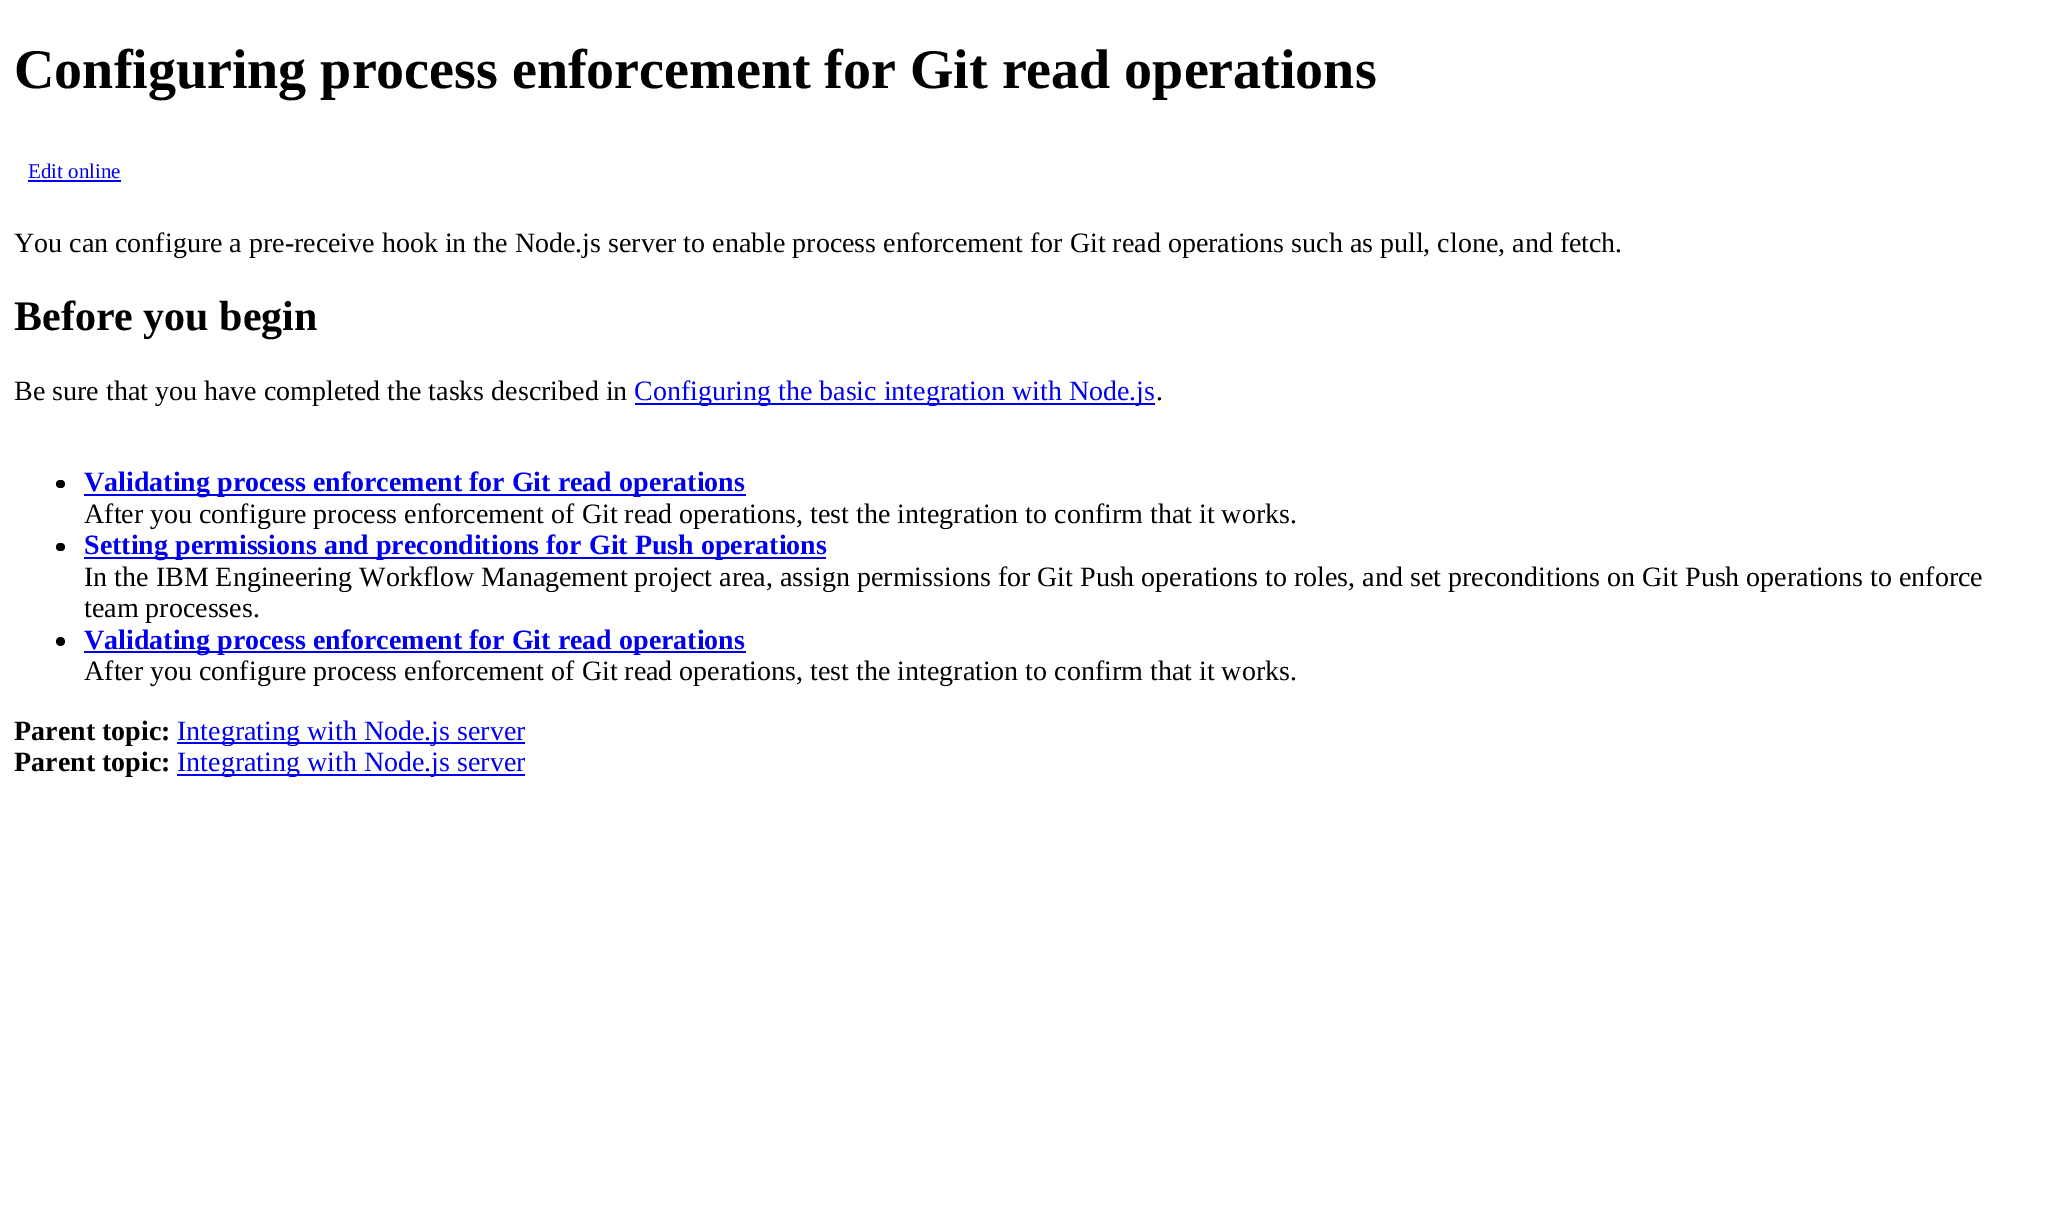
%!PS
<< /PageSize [2058 1208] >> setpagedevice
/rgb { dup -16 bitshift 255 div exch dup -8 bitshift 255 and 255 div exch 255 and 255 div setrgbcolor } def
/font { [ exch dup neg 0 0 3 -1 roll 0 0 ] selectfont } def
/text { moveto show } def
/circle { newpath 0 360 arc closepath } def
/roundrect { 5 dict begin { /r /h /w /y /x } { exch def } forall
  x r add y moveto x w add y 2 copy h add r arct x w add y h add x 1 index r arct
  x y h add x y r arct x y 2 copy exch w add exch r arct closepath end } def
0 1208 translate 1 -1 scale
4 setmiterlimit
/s1 { /LiberationSerif-Bold 56 font 16#000000 rgb } def
/s2 { /LiberationSerif-Regular 21 font 16#0000EE rgb } def
/s3 { /LiberationSerif-Regular 28 font 16#000000 rgb } def
/s4 { /LiberationSerif-Bold 42 font 16#000000 rgb } def
/s5 { /LiberationSerif-Regular 28 font 16#0000EE rgb } def
/s6 { /LiberationSerif-Bold 28 font 16#0000EE rgb } def
/s7 { /LiberationSerif-Bold 28 font 16#000000 rgb } def
16#FFFFFF rgb
0 0 2058 1208 rectfill
s1
(Configuring process enforcement for Git read operations) 14 88 text
s2
(Edit online) 28 178 text
28 180 93 2 rectfill
s3
(You can configure a pre-receive hook in the Node.js server to enable process enforcement for Git read operations such as pull, clone, and fetch.) 14 252 text
s4
(Before you begin) 14 330 text
s3
(Be sure that you have completed the tasks described in) 14 400 text
16#0000EE rgb
635 403 520 2 rectfill
(Configuring the basic integration with Node.js) 634 400 text
s3
(.) 1156 400 text
56 480 9 8 4 roundrect fill
16#0000EE rgb
84 494 662 2 rectfill
s6
(Validating process enforcement for Git read operations) 84 491 text
s3
(After you configure process enforcement of Git read operations, test the integration to confirm that it works.) 84 523 text
56 543 9 8 4 roundrect fill
16#0000EE rgb
84 557 742 2 rectfill
s6
(Setting permissions and preconditions for Git Push operations) 84 554 text
s3
(In the IBM Engineering Workflow Management project area, assign permissions for Git Push operations to roles, and set preconditions on Git Push operations to enforce) 84 586 text
(team processes.) 84 617 text
60.5 641.5 4.5 circle fill
16#0000EE rgb
84 651 662 2 rectfill
s6
(Validating process enforcement for Git read operations) 84 649 text
s3
(After you configure process enforcement of Git read operations, test the integration to confirm that it works.) 84 680 text
s7
(Parent topic:) 14 740 text
16#0000EE rgb
177 742 348 2 rectfill
s5
(Integrating with Node.js server) 177 740 text
s7
(Parent topic:) 14 771 text
16#0000EE rgb
177 774 348 2 rectfill
s5
(Integrating with Node.js server) 177 771 text
showpage
